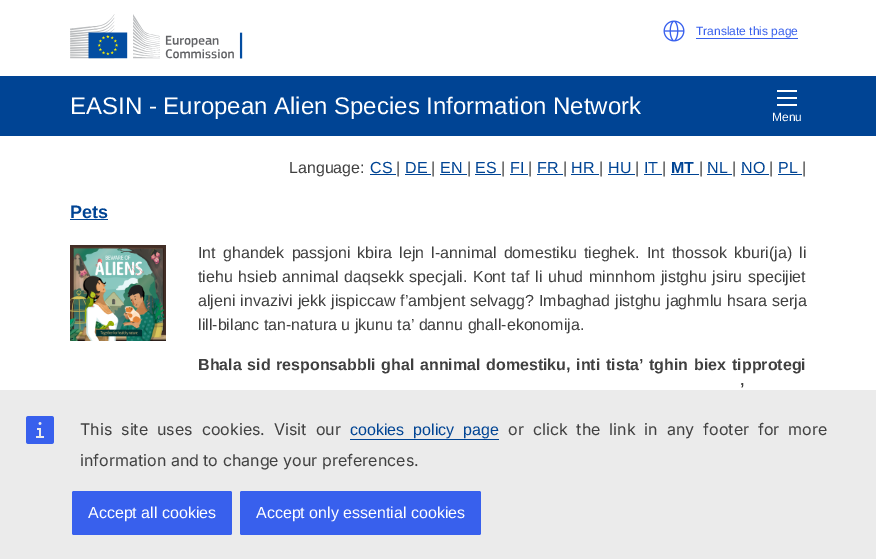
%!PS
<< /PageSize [876 559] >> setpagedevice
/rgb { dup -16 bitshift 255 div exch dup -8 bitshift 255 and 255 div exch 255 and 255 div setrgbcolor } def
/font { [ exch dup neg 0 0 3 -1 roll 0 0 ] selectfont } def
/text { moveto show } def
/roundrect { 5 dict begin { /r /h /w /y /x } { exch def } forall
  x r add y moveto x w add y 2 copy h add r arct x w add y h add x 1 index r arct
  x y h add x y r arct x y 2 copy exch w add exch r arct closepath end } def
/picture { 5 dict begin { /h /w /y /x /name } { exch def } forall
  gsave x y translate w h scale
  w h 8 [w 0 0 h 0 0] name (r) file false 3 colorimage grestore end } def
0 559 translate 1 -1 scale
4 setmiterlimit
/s1 { /LiberationSans-Regular 12 font 16#3860ED rgb } def
/s2 { /LiberationSans-Regular 24 font 16#FFFFFF rgb } def
/s3 { /LiberationSans-Regular 12 font 16#FFFFFF rgb } def
/s4 { /LiberationSans-Regular 16 font 16#404040 rgb } def
/s5 { /LiberationSans-Regular 16 font 16#004494 rgb } def
/s6 { /LiberationSans-Bold 16 font 16#004494 rgb } def
/s7 { /LiberationSans-Bold 18 font 16#004494 rgb } def
/s8 { /LiberationSans-Bold 16 font 16#404040 rgb } def
/s9 { /Inter-Regular 16 font 16#404040 rgb } def
/s10 { /LiberationSans-Regular 16 font 16#FFFFFF rgb } def
16#FFFFFF rgb
0 0 876 559 rectfill
(pic1.raw) 70 14 173 45 picture
(pic2.raw) 663 20 22 22 picture
s1
(Translate this page) 696 35 text
696 38 102 1 rectfill
16#004494 rgb
0 76 876 60 rectfill
s2
(EASIN - European Alien Species Information Network) 70 114 text
(pic3.raw) 777 90 20 16 picture
s3
(Menu) 772 121 text
s4
(Language:) 289 173 text
s5
(CS) 370 173 text
370 174 26 1 rectfill
s4
(|) 396 173 text
s5
(DE) 405 173 text
405 174 26 1 rectfill
s4
(|) 431 173 text
s5
(EN) 440 173 text
440 174 27 1 rectfill
s4
(|) 467 173 text
s5
(ES) 475 173 text
475 174 26 1 rectfill
s4
(|) 501 173 text
s5
(FI) 510 173 text
510 174 18 1 rectfill
s4
(|) 528 173 text
s5
(FR) 537 173 text
537 174 26 1 rectfill
s4
(|) 563 173 text
s5
(HR) 571 173 text
571 174 28 1 rectfill
s4
(|) 599 173 text
s5
(HU) 608 173 text
608 174 27 1 rectfill
s4
(|) 635 173 text
s5
(IT) 644 173 text
644 174 18 1 rectfill
s4
(|) 662 173 text
s6
(MT) 671 173 text
671 174 28 1 rectfill
s4
(|) 699 173 text
s5
(NL) 707 173 text
707 174 25 1 rectfill
s4
(|) 732 173 text
s5
(NO) 741 173 text
741 174 28 1 rectfill
s4
(|) 769 173 text
s5
(PL) 778 173 text
778 174 24 1 rectfill
s4
(|) 802 173 text
s7
(Pets) 70 218 text
70 219 38 1 rectfill
(pic4.raw) 70 245 96 96 picture
/LiberationSans-Regular 16 font
16#404040 rgb
198 258 moveto 2.75 0 32 (Int ghandek passjoni kbira lejn l-annimal domestiku tieghek. Int thossok kburi\(ja\)) widthshow
(li) 799 258 text
198 282 moveto 1.25 0 32 (tiehu hsieb annimal daqsekk specjali. Kont taf li uhud minnhom jistghu jsiru) widthshow
(specijiet) 748 282 text
198 306 moveto 0.5 0 32 (aljeni invazivi jekk jispiccaw f’ambjent selvagg? Imbaghad jistghu) widthshow
666 306 moveto 0.5 0 32 (jaghmlu hsara serja) widthshow
(lill-bilanc tan-natura u jkunu ta’ dannu ghall-ekonomija.) 198 330 text
/LiberationSans-Bold 16 font
198 370 moveto 1.25 0 32 (Bhala sid responsabbli ghal annimal domestiku, inti tista’ tghin biex) widthshow
(tipprotegi) 732 370 text
740 394 moveto 4 0 32 (’) widthshow
16#EBEBEB rgb
0 390 876 169 rectfill
(pic5.raw) 26 416 28 28 picture
/Inter-Regular 16 font
16#404040 rgb
80 435 moveto 4.5 0 32 (This site uses cookies. Visit our) widthshow
/LiberationSans-Regular 16 font
16#004494 rgb
350 435 moveto 4.5 0 32 (cookies policy page) widthshow
350 439 149 1 rectfill
/Inter-Regular 16 font
16#404040 rgb
508 435 moveto 4.5 0 32 (or click the link in any footer for more) widthshow
(information and to change your preferences.) 80 466 text
16#3860ED rgb
72 491 160 44 2 roundrect fill
s10
(Accept all cookies) 88 518 text
16#3860ED rgb
240 491 241 44 2 roundrect fill
s10
(Accept only essential cookies) 256 518 text
showpage
